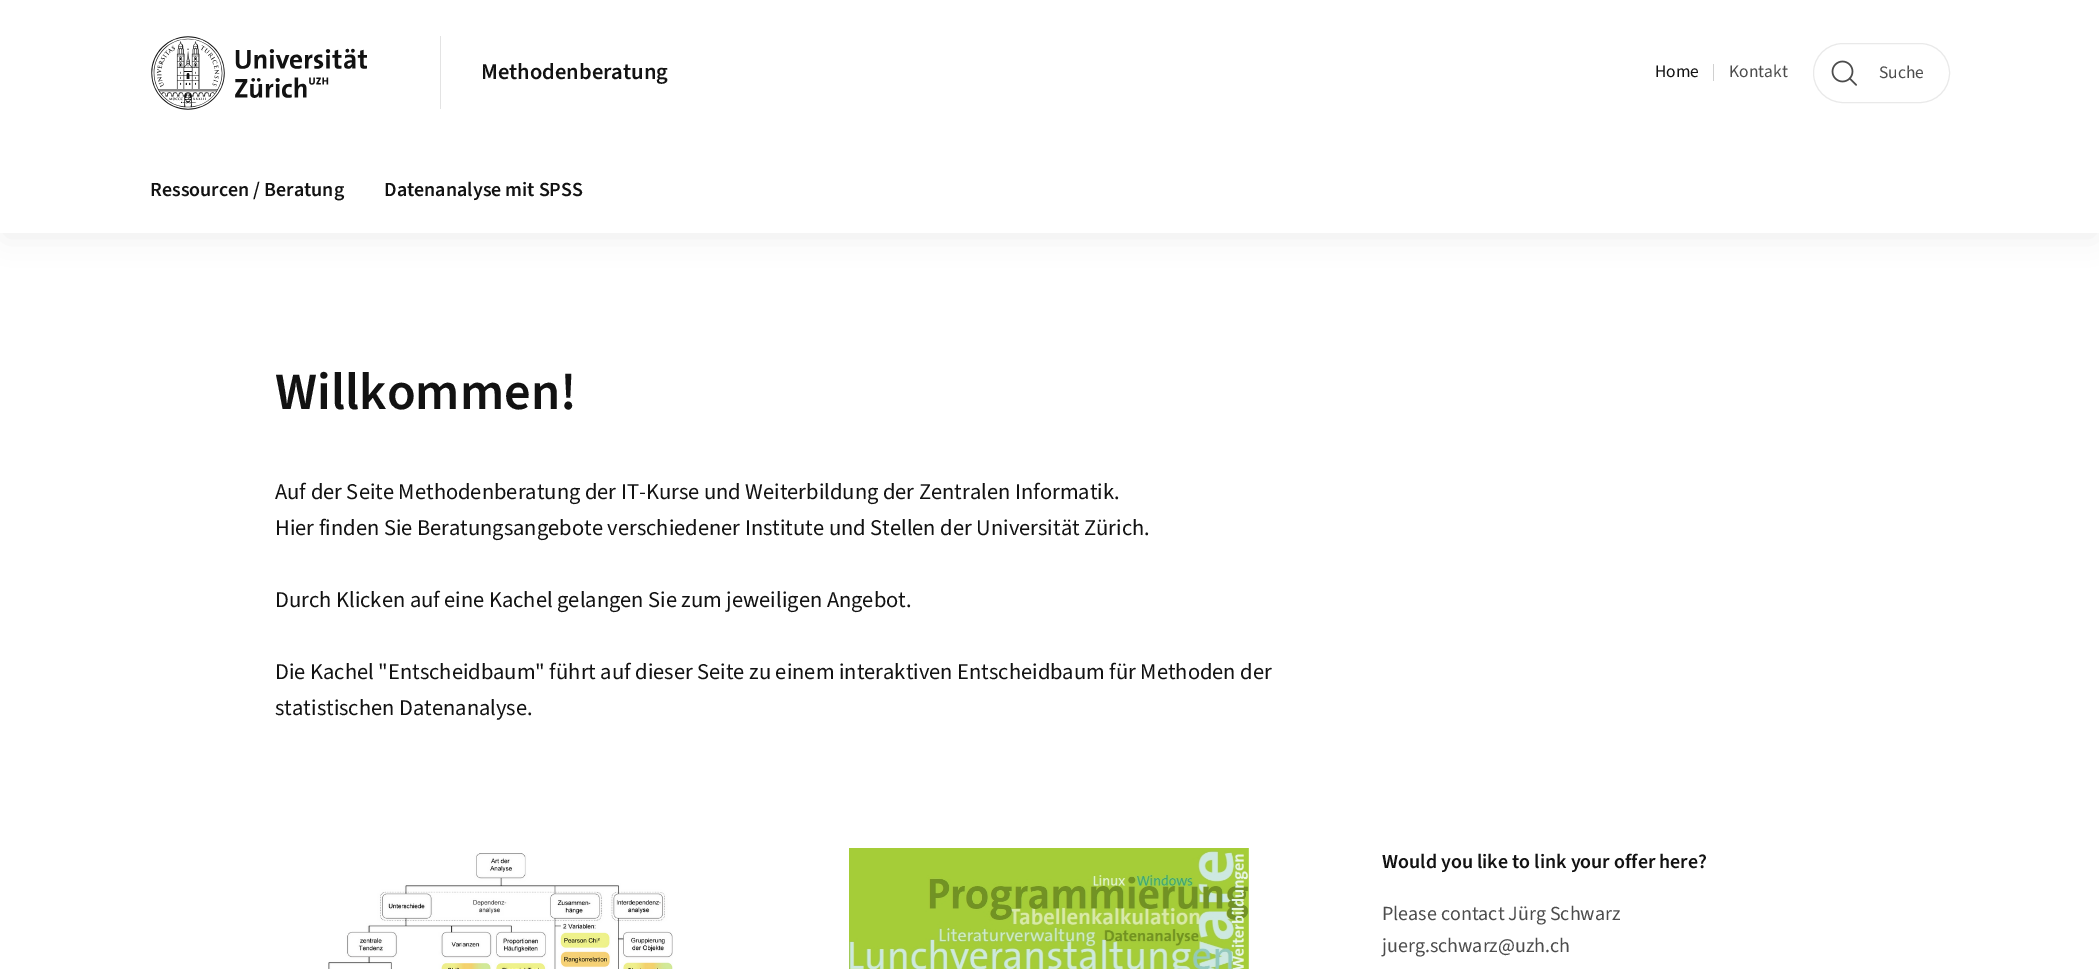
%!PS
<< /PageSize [2099 969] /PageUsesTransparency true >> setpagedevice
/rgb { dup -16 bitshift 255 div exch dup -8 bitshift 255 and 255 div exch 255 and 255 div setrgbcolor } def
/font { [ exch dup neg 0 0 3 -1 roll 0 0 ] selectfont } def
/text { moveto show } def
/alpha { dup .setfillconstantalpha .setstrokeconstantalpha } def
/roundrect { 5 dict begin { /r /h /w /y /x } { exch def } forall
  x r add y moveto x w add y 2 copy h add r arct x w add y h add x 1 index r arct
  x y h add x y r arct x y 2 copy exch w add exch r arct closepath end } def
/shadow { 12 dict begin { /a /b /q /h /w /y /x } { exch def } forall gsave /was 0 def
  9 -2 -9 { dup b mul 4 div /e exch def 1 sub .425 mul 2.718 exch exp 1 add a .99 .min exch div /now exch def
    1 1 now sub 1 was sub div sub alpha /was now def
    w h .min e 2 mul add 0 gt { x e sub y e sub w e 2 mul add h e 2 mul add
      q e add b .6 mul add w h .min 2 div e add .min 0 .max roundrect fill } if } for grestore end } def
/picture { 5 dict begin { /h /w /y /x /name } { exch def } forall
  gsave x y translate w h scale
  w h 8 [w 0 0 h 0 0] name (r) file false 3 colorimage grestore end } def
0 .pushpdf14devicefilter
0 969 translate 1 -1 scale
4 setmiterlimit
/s1 { /SourceSans3-SemiBold 22.5 font 16#121212 rgb } def
/s2 { /SourceSans3-Regular 17.5 font 16#121212 rgb } def
/s3 { /SourceSans3-Regular 17.5 font 16#4C4C4C rgb } def
/s4 { /SourceSans3-SemiBold 20 font 16#121212 rgb } def
/s5 { /SourceSans3-SemiBold 52.5 font 16#121212 rgb } def
/s6 { /SourceSans3-Regular 22.5 font 16#121212 rgb } def
/s7 { /SourceSans3-Regular 20 font 16#4C4C4C rgb } def
16#FFFFFF rgb
0 0 2099 969 rectfill
16#121212 rgb
5 14 2090 222 0 14 0.07 shadow
16#FFFFFF rgb
0 0 2099 233 rectfill
(pic1.raw) 151 36 216 74 picture
16#E3E3E3 rgb
440 36 1 73 rectfill
s1
(Methodenberatung) 481 79 text
s2
(Home) 1655 77 text
16#D0D0D0 rgb
1713 64 1 17 rectfill
s3
(Kontakt) 1729 77 text
16#E9E9E9 rgb
1813.5 43.5 136 59 29.5 roundrect stroke
(pic2.raw) 1831 60 26 26 picture
s3
(Suche) 1879 78 text
s4
(Ressourcen / Beratung) 150 196 text
(Datenanalyse mit SPSS) 384 196 text
s5
(Willkommen!) 275 409 text
s6
(Auf der Seite Methodenberatung der IT-Kurse und Weiterbildung der Zentralen Informatik.) 275 499 text
(Hier finden Sie Beratungsangebote verschiedener Institute und Stellen der Universität Zürich.) 275 535 text
(Durch Klicken auf eine Kachel gelangen Sie zum jeweiligen Angebot.) 275 607 text
(Die Kachel "Entscheidbaum" führt auf dieser Seite zu einem interaktiven Entscheidbaum für Methoden der) 275 679 text
(statistischen Datenanalyse.) 275 715 text
(pic3.raw) 328 853 345 116 picture
(pic4.raw) 849 848 400 121 picture
s4
(Would you like to link your offer here?) 1382 868 text
s7
(Please contact Jürg Schwarz) 1382 920 text
(juerg.schwarz@uzh.ch) 1382 952 text
.poppdf14devicefilter showpage
